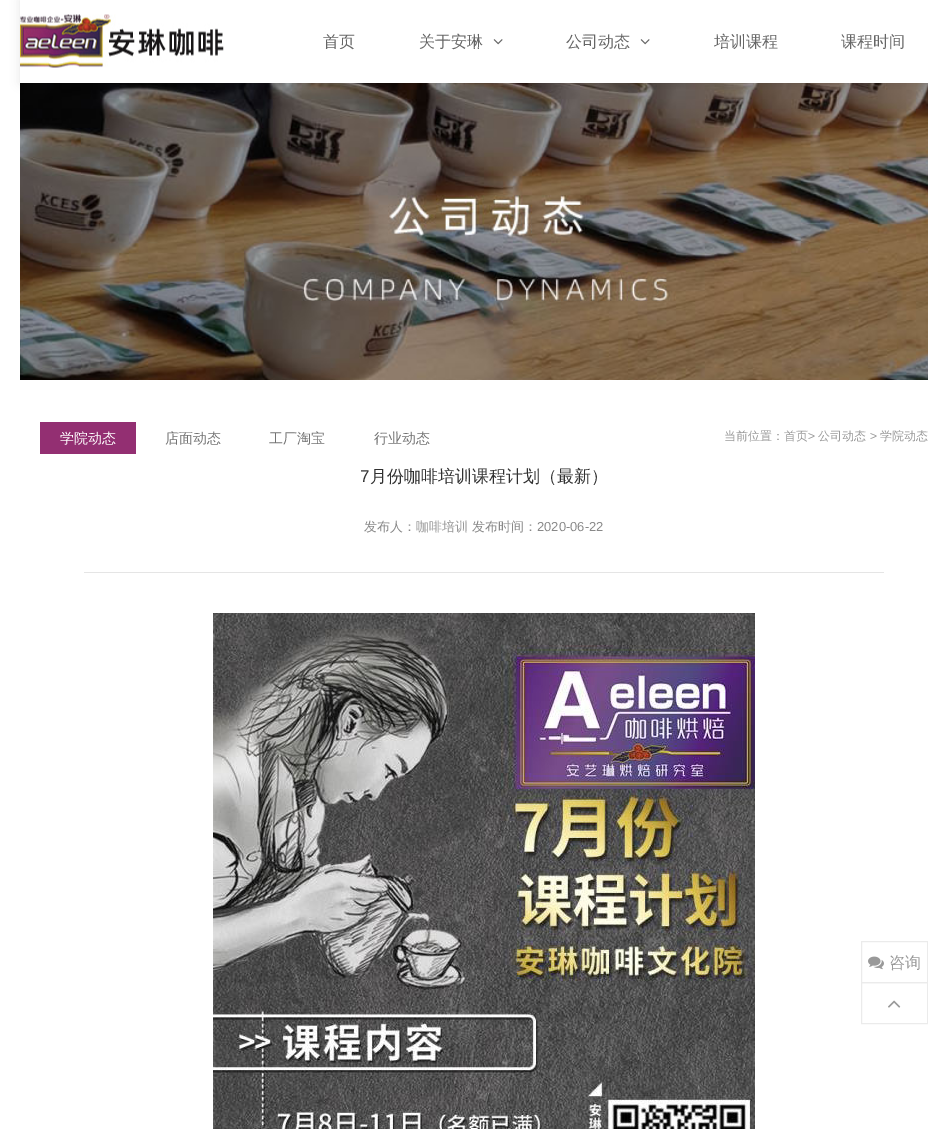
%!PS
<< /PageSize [928 1129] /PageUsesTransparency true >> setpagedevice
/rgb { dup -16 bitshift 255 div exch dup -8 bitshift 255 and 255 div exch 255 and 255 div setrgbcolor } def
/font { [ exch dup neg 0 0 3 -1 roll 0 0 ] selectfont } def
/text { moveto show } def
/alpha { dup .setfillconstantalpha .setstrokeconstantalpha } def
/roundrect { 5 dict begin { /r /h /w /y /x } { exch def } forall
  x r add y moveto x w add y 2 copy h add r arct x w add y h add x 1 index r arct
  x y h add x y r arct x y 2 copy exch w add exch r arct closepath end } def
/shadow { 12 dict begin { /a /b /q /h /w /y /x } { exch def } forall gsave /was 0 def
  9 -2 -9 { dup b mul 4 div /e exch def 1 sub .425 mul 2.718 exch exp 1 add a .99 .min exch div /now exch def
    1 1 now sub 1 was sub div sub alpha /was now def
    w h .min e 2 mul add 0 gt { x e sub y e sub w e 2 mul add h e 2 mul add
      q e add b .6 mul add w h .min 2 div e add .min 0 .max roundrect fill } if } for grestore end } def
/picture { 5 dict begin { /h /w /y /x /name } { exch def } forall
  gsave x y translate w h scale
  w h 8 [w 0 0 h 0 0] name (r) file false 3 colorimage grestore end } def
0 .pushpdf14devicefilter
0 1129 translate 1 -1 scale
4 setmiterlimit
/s1 { /WenQuanYiZenHei-Medium 16 font 16#666666 rgb } def
/s2 { /WenQuanYiZenHei-Medium 14 font 16#FFFFFF rgb } def
/s3 { /WenQuanYiZenHei-Medium 14 font 16#737373 rgb } def
/s4 { /LiberationSans-Regular 17 font 16#303030 rgb } def
/s5 { /WenQuanYiZenHei-Medium 17 font 16#303030 rgb } def
/s6 { /WenQuanYiZenHei-Medium 13 font 16#888888 rgb } def
/s7 { /WenQuanYiZenHei-Medium 13 font 16#999999 rgb } def
/s8 { /LiberationSans-Regular 13 font 16#888888 rgb } def
/s9 { /WenQuanYiZenHei-Medium 12 font 16#999999 rgb } def
/s10 { /LiberationSans-Regular 12 font 16#999999 rgb } def
/s11 { /WenQuanYiZenHei-Medium 16 font 16#999999 rgb } def
16#FFFFFF rgb
0 0 928 1129 rectfill
(pic3.raw) 20 83 908 297 picture
16#000000 rgb
20 0 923 83 0 5 0.1 shadow
16#FFFFFF rgb
20 0 908 83 rectfill
(pic1.raw) 20 14 204 54 picture
s1
(首页) 323 47 text
(关于安琳) 419 47 text
(pic2.raw) 493 39 10 6 picture
(公司动态) 566 47 text
(pic2.raw) 640 39 10 6 picture
(培训课程) 714 47 text
(课程时间) 841 47 text
16#932F72 rgb
40 422 96 32 rectfill
s2
(学院动态) 60 443 text
s3
(店面动态) 165 443 text
(工厂淘宝) 269 443 text
(行业动态) 374 443 text
s4
(7) 360 482 text
s5
(月份咖啡培训课程计划（最新）) 370 482 text
s6
(发布人：) 364 531 text
s7
(咖啡培训) 416 531 text
s6
(发布时间：) 472 531 text
s8
(2020-06-22) 537 531 text
16#E5E5E5 rgb
84 572 800 1 rectfill
(pic4.raw) 213 613 542 516 picture
s9
(当前位置：首页) 724 440 text
s10
(>) 808 440 text
s9
(公司动态) 818 440 text
s10
(>) 870 440 text
s9
(学院动态) 880 440 text
16#EBEBEB rgb
861.5 941.5 66 41 rectstroke
(pic5.raw) 868 956 16 14 picture
s11
(咨询) 889 968 text
16#EBEBEB rgb
861.5 982.5 66 41 rectstroke
(pic6.raw) 888 1000 13 8 picture
.poppdf14devicefilter showpage
